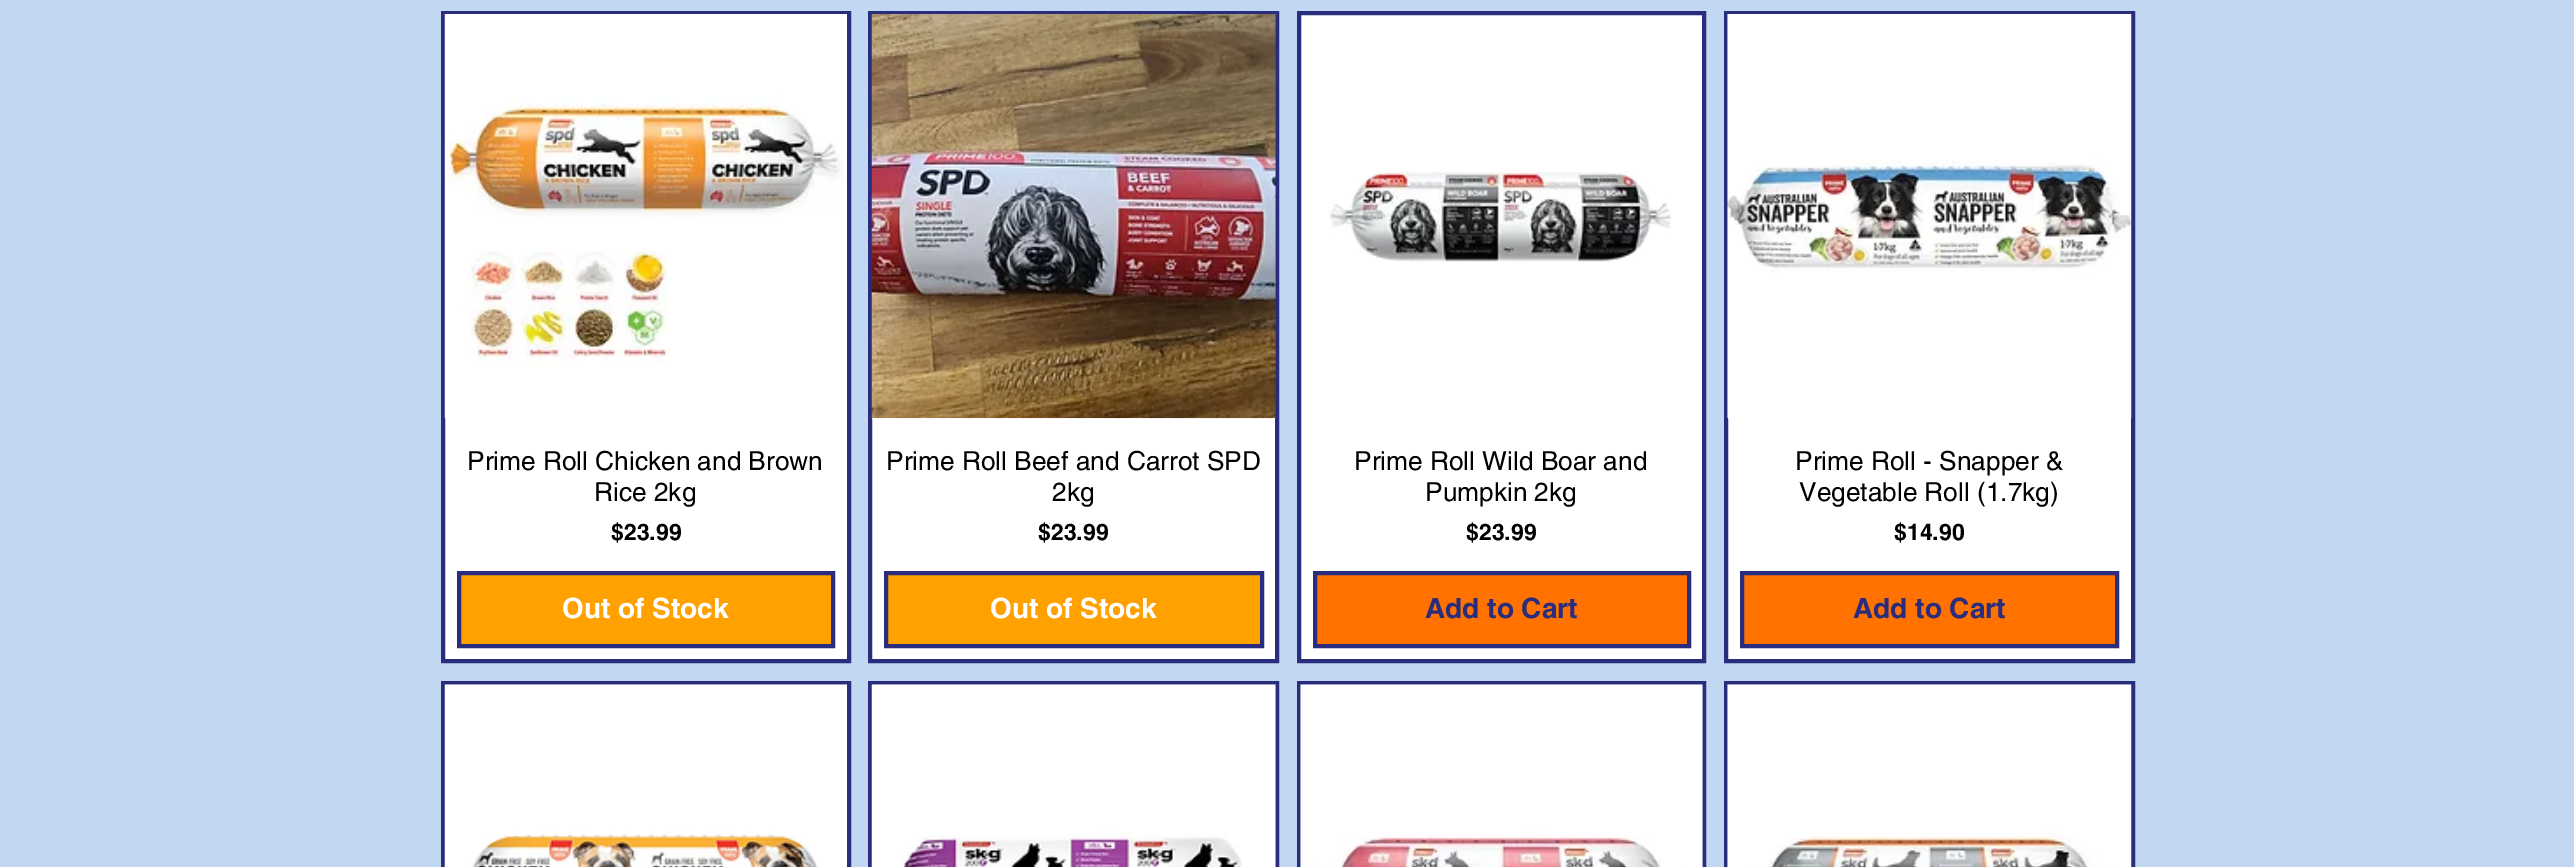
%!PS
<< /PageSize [2574 867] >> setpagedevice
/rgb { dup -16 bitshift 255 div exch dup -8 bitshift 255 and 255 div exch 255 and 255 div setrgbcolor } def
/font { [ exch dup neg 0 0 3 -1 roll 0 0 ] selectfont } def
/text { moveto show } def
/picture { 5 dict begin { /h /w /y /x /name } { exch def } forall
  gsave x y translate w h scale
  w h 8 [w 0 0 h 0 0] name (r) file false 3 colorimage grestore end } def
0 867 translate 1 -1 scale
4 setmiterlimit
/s1 { /helvetica-Regular 26.25 font 16#000000 rgb } def
/s2 { /helvetica-Bold 23 font 16#000000 rgb } def
/s3 { /helvetica-Bold 28 font 16#FFFFFF rgb } def
/s4 { /helvetica-Bold 28 font 16#2A2C7E rgb } def
16#C2D8F2 rgb
0 0 2574 867 rectfill
16#FFFFFF rgb
445 418 402 241 rectfill
16#2A2C7E rgb
4 setlinewidth
443 13 406 648 rectstroke
(pic1.raw) 444 14 403 404 picture
s1
(Prime Roll Chicken and Brown) 467 470 text
(Rice 2kg) 594 501 text
s2
($23.99) 611 540 text
16#FFA100 rgb
459 573 moveto 833 573 lineto 833 646 lineto 459 646 lineto closepath gsave fill grestore
16#2A2C7E rgb
stroke
s3
(Out of Stock) 562 618 text
872 418 403 241 rectfill
16#2A2C7E rgb
870 13 407 648 rectstroke
(pic2.raw) 871 14 405 405 picture
s1
(Prime Roll Beef and Carrot SPD) 886 470 text
(2kg) 1052 501 text
s2
($23.99) 1038 540 text
16#FFA100 rgb
886 573 moveto 1262 573 lineto 1262 646 lineto 886 646 lineto closepath gsave fill grestore
16#2A2C7E rgb
stroke
s3
(Out of Stock) 990 618 text
1299 13 moveto 1704 13 lineto 1704 661 lineto 1299 661 lineto closepath gsave fill grestore
16#2A2C7E rgb
stroke
(pic3.raw) 1329 171 343 91 picture
s1
(Prime Roll Wild Boar and) 1354 470 text
(Pumpkin 2kg) 1425 501 text
s2
($23.99) 1466 540 text
16#FF7200 rgb
1315 573 moveto 1689 573 lineto 1689 646 lineto 1315 646 lineto closepath gsave fill grestore
16#2A2C7E rgb
stroke
s4
(Add to Cart) 1425 618 text
16#FFFFFF rgb
1728 418 403 241 rectfill
16#2A2C7E rgb
1726 13 407 648 rectstroke
(pic4.raw) 1727 14 405 405 picture
s1
(Prime Roll - Snapper &) 1795 470 text
(Vegetable Roll \(1.7kg\)) 1799 501 text
s2
($14.90) 1894 540 text
16#FF7200 rgb
1742 573 moveto 2117 573 lineto 2117 646 lineto 1742 646 lineto closepath gsave fill grestore
16#2A2C7E rgb
stroke
s4
(Add to Cart) 1853 618 text
443 683 406 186 rectstroke
(pic5.raw) 444 684 403 183 picture
870 683 407 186 rectstroke
(pic6.raw) 871 684 405 183 picture
1299 683 405 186 rectstroke
(pic7.raw) 1300 684 403 183 picture
1726 683 407 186 rectstroke
(pic8.raw) 1727 684 405 183 picture
showpage
